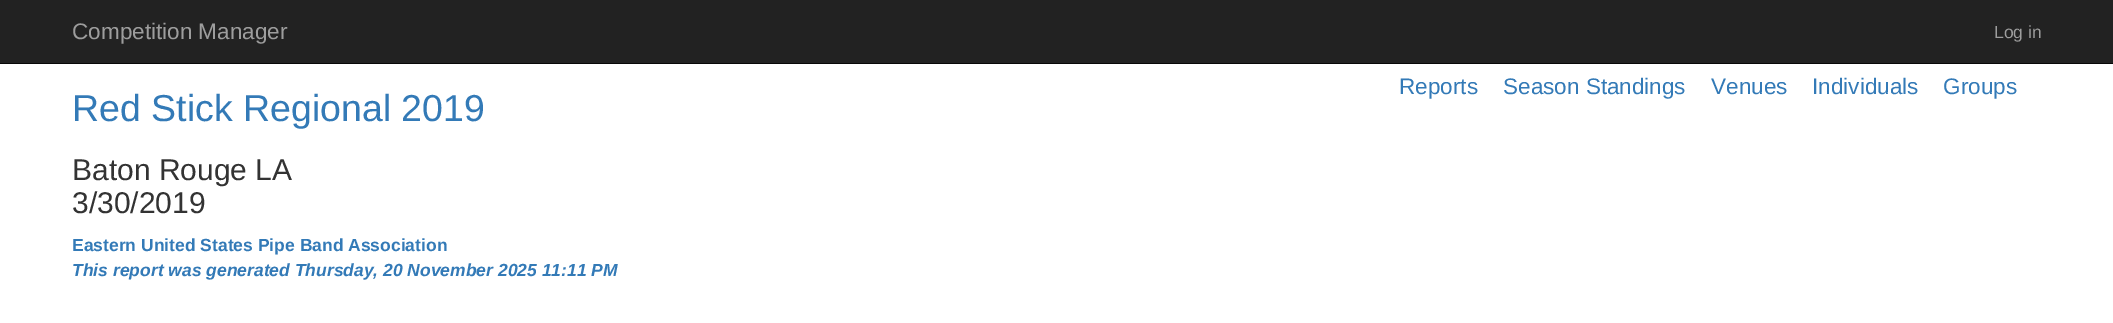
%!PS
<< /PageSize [2113 323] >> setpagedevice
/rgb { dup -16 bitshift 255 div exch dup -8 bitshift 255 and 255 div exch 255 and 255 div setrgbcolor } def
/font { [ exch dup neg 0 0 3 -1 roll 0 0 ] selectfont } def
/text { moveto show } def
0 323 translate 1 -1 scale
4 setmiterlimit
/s1 { /LiberationSans-Regular 22.5 font 16#9D9D9D rgb } def
/s2 { /LiberationSans-Regular 17.5 font 16#9D9D9D rgb } def
/s3 { /LiberationSans-Regular 22.5 font 16#337AB7 rgb } def
/s4 { /LiberationSans-Regular 37.5 font 16#337AB7 rgb } def
/s5 { /LiberationSans-Regular 30 font 16#333333 rgb } def
/s6 { /LiberationSans-Bold 17.5 font 16#337AB7 rgb } def
/s7 { /LiberationSans-BoldItalic 17.5 font 16#337AB7 rgb } def
16#FFFFFF rgb
0 0 2113 323 rectfill
16#222222 rgb
0 0 2113 63 rectfill
16#080808 rgb
0 63 2113 1 rectfill
s1
(Competition Manager) 72 39 text
s2
(Log in) 1994 38 text
s3
(Reports) 1399 94 text
(Season Standings) 1503 94 text
(Venues) 1711 94 text
(Individuals) 1812 94 text
(Groups) 1943 94 text
s4
(Red Stick Regional 2019) 72 121 text
s5
(Baton Rouge LA) 72 180 text
(3/30/2019) 72 213 text
s6
(Eastern United States Pipe Band Association) 72 251 text
s7
(This report was generated Thursday, 20 November 2025 11:11 PM) 72 276 text
showpage
